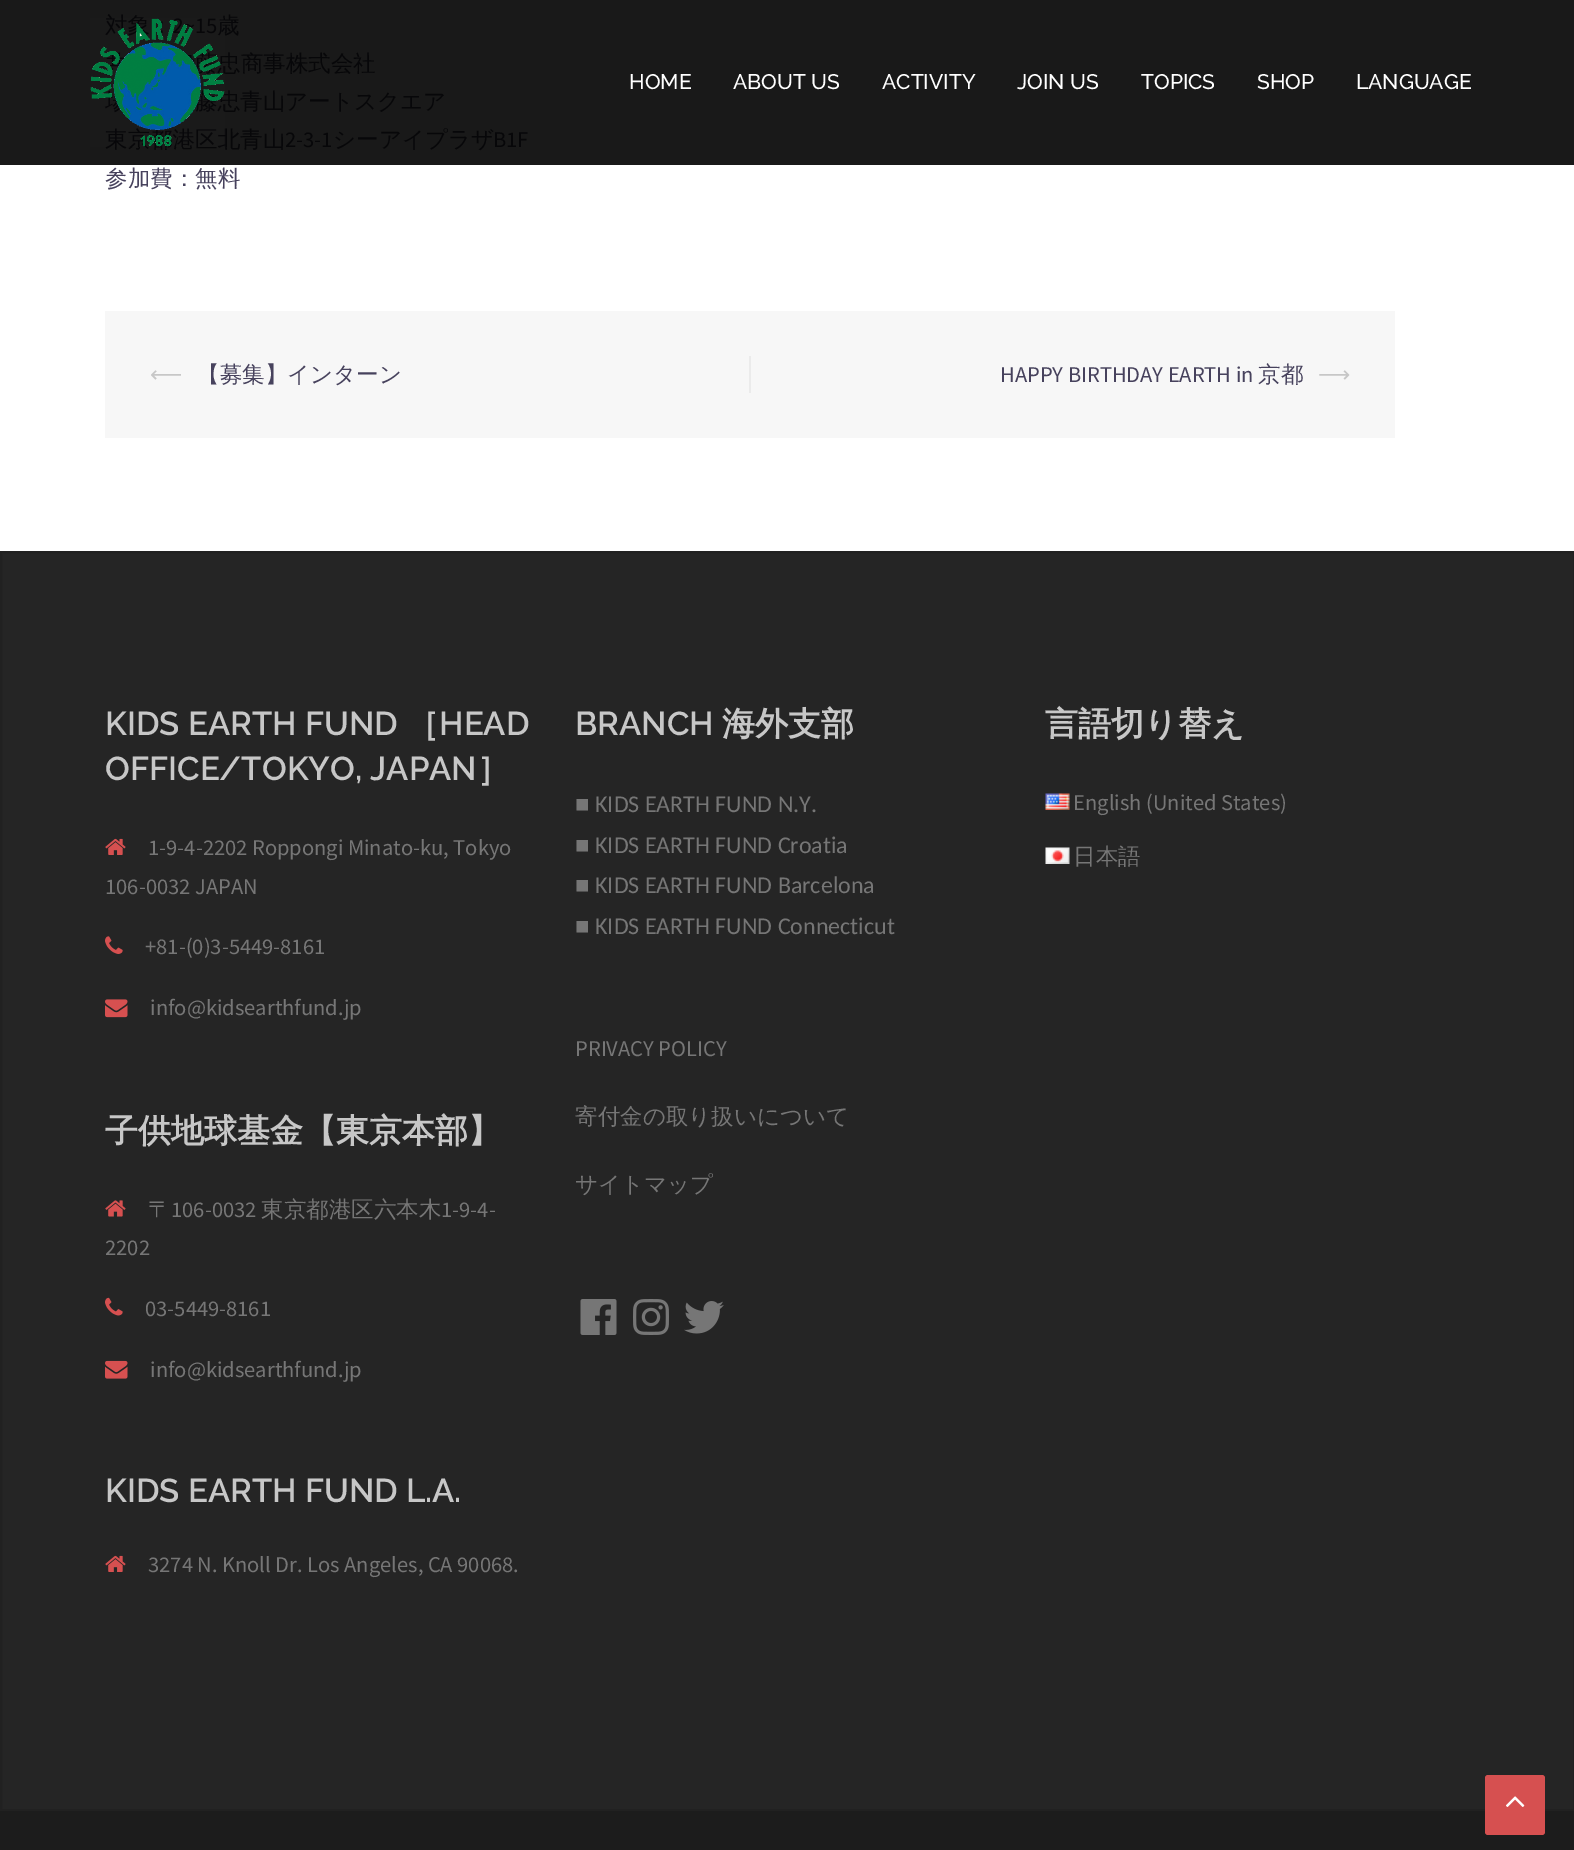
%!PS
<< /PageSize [1574 1850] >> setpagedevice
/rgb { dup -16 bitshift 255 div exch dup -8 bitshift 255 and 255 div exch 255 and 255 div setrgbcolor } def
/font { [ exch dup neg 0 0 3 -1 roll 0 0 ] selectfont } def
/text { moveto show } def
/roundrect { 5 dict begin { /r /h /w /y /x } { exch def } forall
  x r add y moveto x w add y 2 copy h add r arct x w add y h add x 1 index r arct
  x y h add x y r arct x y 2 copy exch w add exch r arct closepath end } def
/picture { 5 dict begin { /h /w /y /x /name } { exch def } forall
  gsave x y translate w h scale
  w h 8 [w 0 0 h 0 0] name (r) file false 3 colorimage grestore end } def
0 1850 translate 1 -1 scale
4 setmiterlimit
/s1 { /WenQuanYiZenHei-Medium 22.5 font 16#070709 rgb } def
/s2 { /SourceSansPro-Regular 22.5 font 16#070709 rgb } def
/s3 { /WenQuanYiZenHei-Medium 22.5 font 16#47425D rgb } def
/s4 { /DejaVuSans-Regular 22.5 font 16#C7C7C7 rgb } def
/s5 { /SourceSansPro-Regular 22.5 font 16#47425D rgb } def
/s6 { /Raleway-Medium 21 font 16#FFFFFF rgb } def
/s7 { /Raleway-SemiBold 33 font 16#C7C7C7 rgb } def
/s8 { /WenQuanYiZenHei-Bold 33 font 16#C7C7C7 rgb } def
/s9 { /SourceSansPro-Regular 22.5 font 16#767676 rgb } def
/s10 { /WenQuanYiZenHei-Medium 22.5 font 16#767676 rgb } def
/s11 { /LiberationSerif-Regular 24 font 16#767676 rgb } def
/s12 { /Carlito-Regular 24 font 16#767676 rgb } def
16#FFFFFF rgb
0 0 1574 1850 rectfill
16#191919 rgb
0 0 1574 165 rectfill
s1
(対象：) 105 33 text
s2
(2~15) 173 33 text
s1
(歳) 217 33 text
(忠商事株式会社) 218 71 text
(藤忠青山アートスクエア) 195 109 text
(東京都港区北青山) 105 147 text
s2
(2-3-1) 285 147 text
s1
(シーアイプラザ) 333 147 text
s2
(B1F) 493 147 text
s3
(参加費：無料) 105 186 text
16#F7F7F7 rgb
105 311 1290 127 rectfill
16#EBEBEB rgb
749 356 2 37 rectfill
s4
(⟵) 150 382 text
s3
(【募集】インターン) 197 382 text
s5
(HAPPY BIRTHDAY EARTH in) 1000 382 text
s3
(京都) 1258 382 text
s4
(⟶) 1318 382 text
(pic1.raw) 90 18 135 129 picture
s6
(HOME) 629 89 text
(ABOUT US) 733 89 text
(ACTIVITY) 882 89 text
(JOIN US) 1017 89 text
(TOPICS) 1141 89 text
(SHOP) 1257 89 text
(LANGUAGE) 1356 89 text
16#252525 rgb
1 552 moveto 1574 552 lineto 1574 1810 lineto 1 1810 lineto closepath gsave fill grestore
16#212121 rgb
2 setlinewidth
stroke
s7
(KIDS EARTH FUND) 105 735 text
s8
(［) 406 735 text
s7
(HEAD) 439 735 text
(OFFICE/TOKYO, JAPAN) 105 780 text
s8
(］) 477 780 text
(pic2.raw) 105 838 21 17 picture
s9
(1-9-4-2202 Roppongi Minato-ku, Tokyo) 148 855 text
(106-0032 JAPAN) 105 894 text
(pic3.raw) 105 936 18 18 picture
(+81-\(0\)3-5449-8161) 145 954 text
(pic4.raw) 105 999 23 19 picture
(info@kidsearthfund.jp) 150 1015 text
s8
(子供地球基金【東京本部】) 105 1142 text
(pic5.raw) 105 1200 21 17 picture
s10
(〒) 148 1217 text
s9
(106-0032) 171 1217 text
s10
(東京都港区六本木) 261 1217 text
s9
(1-9-4-) 441 1217 text
(2202) 105 1255 text
(pic6.raw) 105 1297 18 19 picture
(03-5449-8161) 145 1316 text
(pic7.raw) 105 1360 23 19 picture
(info@kidsearthfund.jp) 150 1377 text
s7
(KIDS EARTH FUND L.A.) 105 1502 text
(pic2.raw) 105 1555 21 17 picture
s9
(3274 N. Knoll Dr. Los Angeles, CA 90068.) 148 1572 text
s7
(BRANCH) 575 735 text
s8
(海外支部) 722 735 text
s11
(■) 575 812 text
s12
(KIDS EARTH FUND N.Y.) 595 812 text
s11
(■) 575 853 text
s12
(KIDS EARTH FUND Croatia) 595 853 text
s11
(■) 575 893 text
s12
(KIDS EARTH FUND Barcelona) 595 893 text
s11
(■) 575 934 text
s12
(KIDS EARTH FUND Connecticut) 595 934 text
s9
(PRIVACY POLICY) 575 1056 text
s10
(寄付金の取り扱いについて) 575 1124 text
(サイトマップ) 575 1192 text
(pic8.raw) 580 1299 37 36 picture
(pic9.raw) 633 1299 36 36 picture
(pic10.raw) 684 1301 40 33 picture
s8
(言語切り替え) 1045 735 text
(pic11.raw) 1045 793 25 17 picture
s9
(English \(United States\)) 1073 810 text
(pic12.raw) 1045 847 25 17 picture
s10
(日本語) 1073 864 text
16#1C1C1C rgb
0 1811 1574 39 rectfill
16#D65050 rgb
1485 1775 60 60 3 roundrect fill
(pic13.raw) 1506 1796 19 11 picture
showpage
